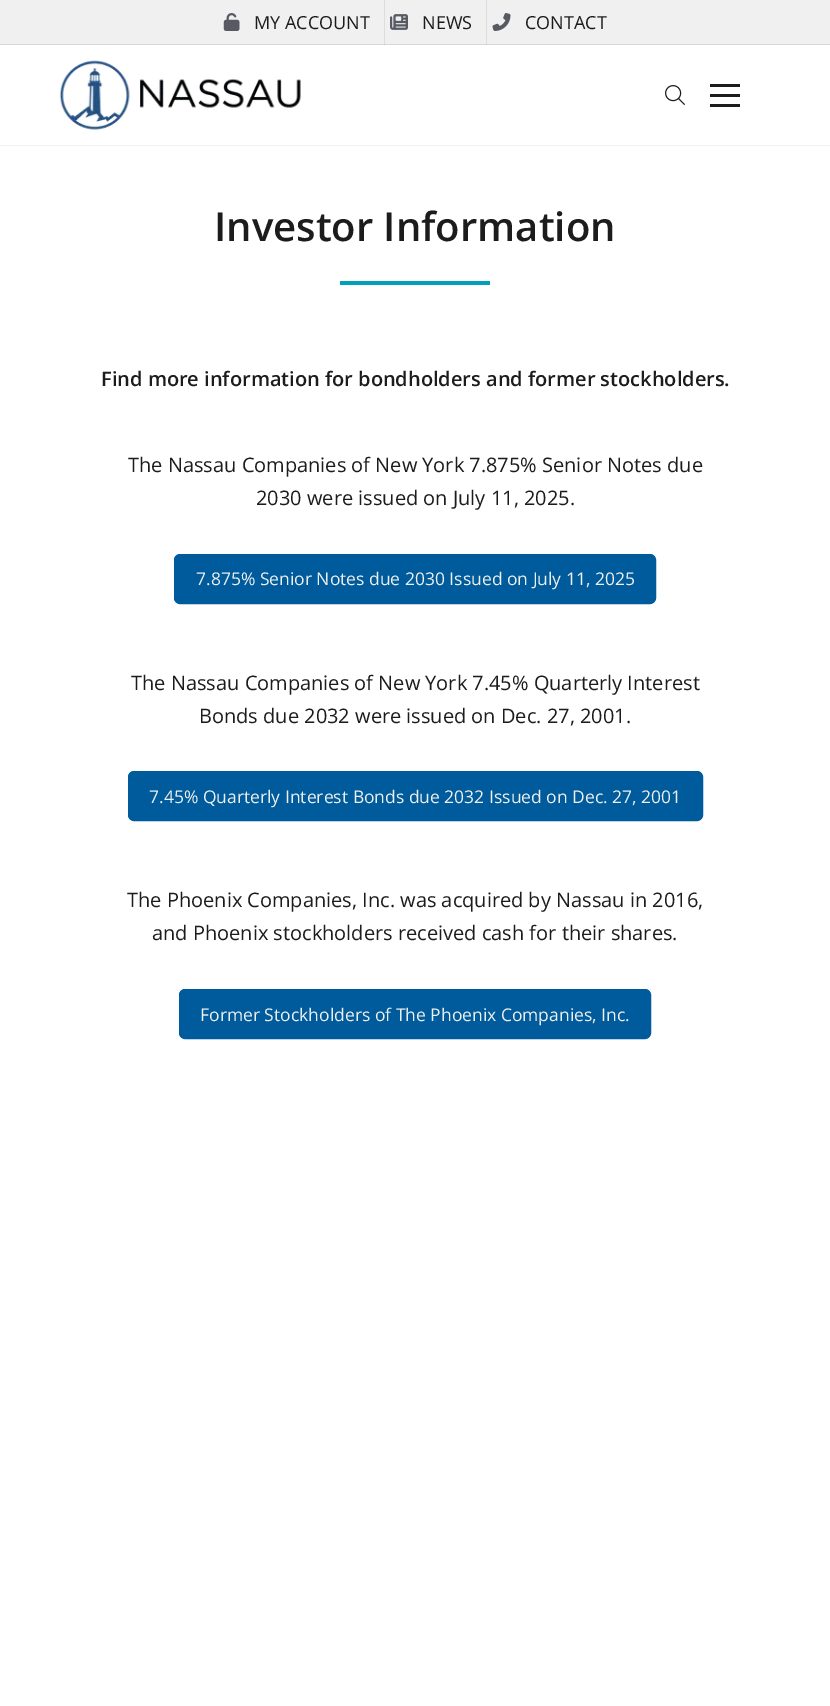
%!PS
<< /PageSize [830 1706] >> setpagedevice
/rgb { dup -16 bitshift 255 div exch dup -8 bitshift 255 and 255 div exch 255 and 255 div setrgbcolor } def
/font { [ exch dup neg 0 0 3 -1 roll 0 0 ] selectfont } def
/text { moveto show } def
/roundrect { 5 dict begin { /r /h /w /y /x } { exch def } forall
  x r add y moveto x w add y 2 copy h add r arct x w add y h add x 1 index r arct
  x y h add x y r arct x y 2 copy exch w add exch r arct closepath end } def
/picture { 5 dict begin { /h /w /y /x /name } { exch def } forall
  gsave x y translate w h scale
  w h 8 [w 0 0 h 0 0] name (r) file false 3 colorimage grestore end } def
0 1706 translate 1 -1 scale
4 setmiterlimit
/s1 { /OpenSans-Regular 18 font 16#1C1C1C rgb } def
/s2 { /OpenSans-SemiBold 40 font 16#1C1C1C rgb } def
/s3 { /OpenSans-SemiBold 20 font 16#1C1C1C rgb } def
/s4 { /OpenSans-Regular 20 font 16#1C1C1C rgb } def
/s5 { /OpenSans-Regular 17.5 font 16#EEEFEF rgb } def
16#FFFFFF rgb
0 0 830 1706 rectfill
16#F0F0F0 rgb
0 0 830 44 rectfill
16#DDDDDD rgb
486 0 1 45 rectfill
384 0 1 45 rectfill
16#D8D8D8 rgb
0 44 830 1 rectfill
16#C7C7C7 rgb
486 44 1 1 rectfill
384 44 1 1 rectfill
(pic1.raw) 223 13 17 18 picture
s1
(MY ACCOUNT) 254 29 text
(pic2.raw) 390 14 18 16 picture
(NEWS) 422 29 text
(pic3.raw) 492 13 19 18 picture
(CONTACT) 525 29 text
16#F0F0F0 rgb
0 145 830 1 rectfill
(pic4.raw) 59 60 242 70 picture
(pic5.raw) 665 85 20 20 picture
16#1C1C1C rgb
710 84 30 3 rectfill
710 94 30 3 rectfill
710 104 30 3 rectfill
s2
(Investor Information) 214 241 text
16#00A0BD rgb
340 281 150 4 rectfill
s3
(Find more information for bondholders and former stockholders.) 101 386 text
s4
(The Nassau Companies of New York 7.875% Senior Notes due) 128 472 text
(2030 were issued on July 11, 2025.) 256 505 text
16#005B9C rgb
174.5 554.5 481 49 5.5 roundrect gsave fill grestore
stroke
s5
(7.875% Senior Notes due 2030 Issued on July 11, 2025) 196 585 text
s4
(The Nassau Companies of New York 7.45% Quarterly Interest) 131 690 text
(Bonds due 2032 were issued on Dec. 27, 2001.) 199 723 text
16#005B9C rgb
128.5 771.5 574 49 5.5 roundrect gsave fill grestore
stroke
s5
(7.45% Quarterly Interest Bonds due 2032 Issued on Dec. 27, 2001) 149 803 text
s4
(The Phoenix Companies, Inc. was acquired by Nassau in 2016,) 127 907 text
(and Phoenix stockholders received cash for their shares.) 152 940 text
16#005B9C rgb
179.5 989.5 471 49 5.5 roundrect gsave fill grestore
stroke
s5
(Former Stockholders of The Phoenix Companies, Inc.) 200 1021 text
showpage
